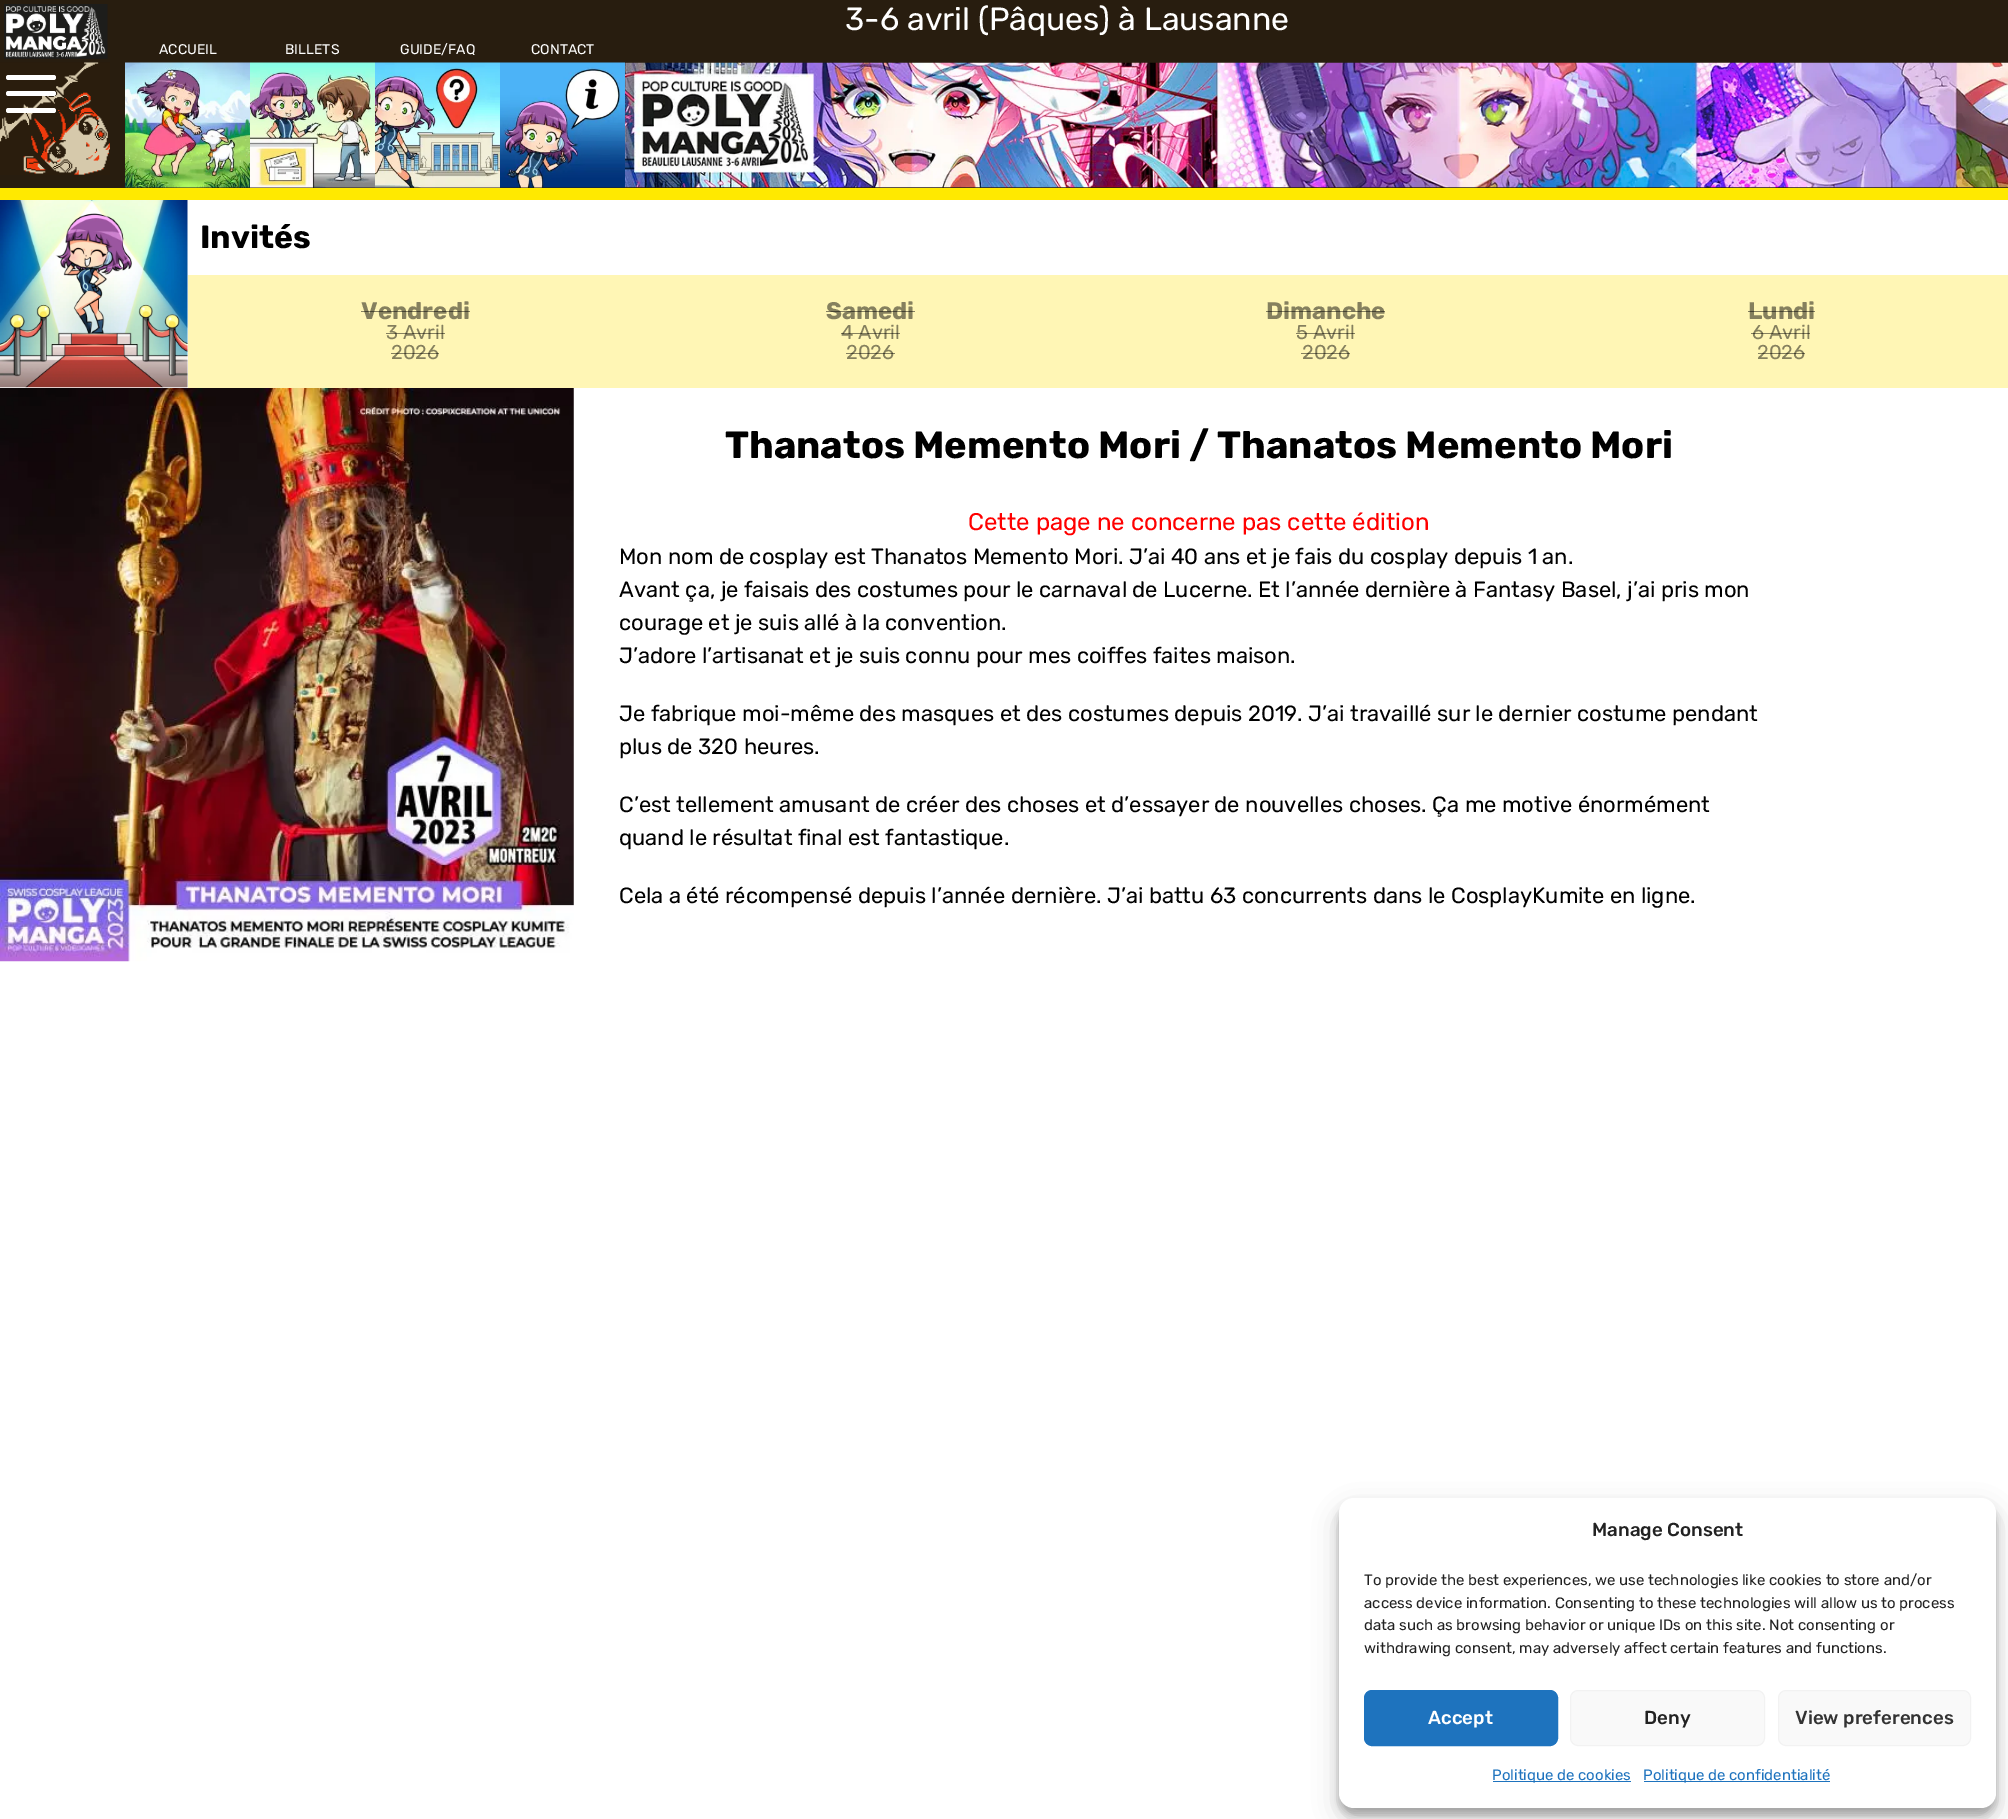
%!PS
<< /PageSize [2008 1819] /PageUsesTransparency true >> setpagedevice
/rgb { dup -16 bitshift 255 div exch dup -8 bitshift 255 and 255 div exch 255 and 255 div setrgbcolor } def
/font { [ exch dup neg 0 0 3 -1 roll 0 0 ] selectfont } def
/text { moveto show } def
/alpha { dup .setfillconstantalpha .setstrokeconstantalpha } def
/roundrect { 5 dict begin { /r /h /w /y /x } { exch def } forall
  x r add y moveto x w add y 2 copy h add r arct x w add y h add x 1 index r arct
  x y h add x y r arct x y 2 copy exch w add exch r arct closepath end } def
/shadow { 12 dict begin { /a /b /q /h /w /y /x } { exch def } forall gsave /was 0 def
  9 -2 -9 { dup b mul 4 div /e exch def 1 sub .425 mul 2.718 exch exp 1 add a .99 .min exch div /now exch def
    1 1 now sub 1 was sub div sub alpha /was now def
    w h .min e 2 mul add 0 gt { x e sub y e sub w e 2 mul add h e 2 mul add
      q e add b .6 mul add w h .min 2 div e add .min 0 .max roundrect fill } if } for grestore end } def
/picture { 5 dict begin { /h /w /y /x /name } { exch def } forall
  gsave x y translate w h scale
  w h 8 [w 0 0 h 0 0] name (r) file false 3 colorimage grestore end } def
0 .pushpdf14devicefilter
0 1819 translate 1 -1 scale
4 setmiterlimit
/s1 { /Rubik-Regular 32 font 16#FFFFFF rgb } def
/s2 { /Rubik-Regular 14 font 16#FFFFFF rgb } def
/s3 { /Rubik-Bold 32 font 16#000000 rgb } def
/s4 { /Rubik-Bold 24 font 16#85805E rgb } def
/s5 { /Rubik-Regular 20 font 16#85805E rgb } def
/s6 { /Rubik-Bold 38 font 16#000000 rgb } def
/s7 { /Rubik-Regular 24 font 16#FF0000 rgb } def
/s8 { /Rubik-Regular 22 font 16#000000 rgb } def
/s9 { /Rubik-Medium 18.75 font 16#222222 rgb } def
/s10 { /Rubik-Regular 15 font 16#222222 rgb } def
/s11 { /Rubik-Medium 18.75 font 16#FFFFFF rgb } def
/s12 { /Rubik-Medium 18.75 font 16#333333 rgb } def
/s13 { /Rubik-Regular 15 font 16#1E73BE rgb } def
16#281D0F rgb
0 0 2008 1819 rectfill
(pic1.raw) 4 4 104 55 picture
s1
(3-6 avril \(Pâques\) à Lausanne) 845 30 text
s2
(ACCUEIL) 159 54 text
(BILLETS) 285 54 text
(GUIDE/FAQ) 400 54 text
(CONTACT) 531 54 text
(pic2.raw) 0 62 110 113 picture
(pic3.raw) 125 62 125 126 picture
(pic4.raw) 250 62 125 126 picture
(pic5.raw) 375 62 125 126 picture
(pic6.raw) 500 62 125 126 picture
(pic7.raw) 625 62 1383 126 picture
6 75 50 5 2.5 roundrect fill
6 91 50 5 2.5 roundrect fill
6 108 50 5 2.5 roundrect fill
16#FFE900 rgb
0 188 2008 12 rectfill
16#FFFFFF rgb
0 200 2008 1619 rectfill
(pic8.raw) 0 200 188 188 picture
s3
(Invités) 200 248 text
16#FFF6B5 rgb
188 275 1820 113 rectfill
s4
(Vendredi) 361 319 text
0.48 alpha
16#000000 rgb
361 311 109 1 rectfill
1 alpha
s5
(3 Avril) 386 339 text
0.48 alpha
16#000000 rgb
386 333 59 1 rectfill
1 alpha
s5
(2026) 391 359 text
0.48 alpha
16#000000 rgb
391 353 48 1 rectfill
1 alpha
s4
(Samedi) 826 319 text
0.48 alpha
16#000000 rgb
826 311 89 1 rectfill
1 alpha
s5
(4 Avril) 841 339 text
0.48 alpha
16#000000 rgb
841 333 59 1 rectfill
1 alpha
s5
(2026) 846 359 text
0.48 alpha
16#000000 rgb
846 353 49 1 rectfill
1 alpha
s4
(Dimanche) 1266 319 text
0.48 alpha
16#000000 rgb
1266 311 119 1 rectfill
1 alpha
s5
(5 Avril) 1296 339 text
0.48 alpha
16#000000 rgb
1296 333 59 1 rectfill
1 alpha
s5
(2026) 1302 359 text
0.48 alpha
16#000000 rgb
1301 353 49 1 rectfill
1 alpha
s4
(Lundi) 1748 319 text
0.48 alpha
16#000000 rgb
1748 311 67 1 rectfill
1 alpha
s5
(6 Avril) 1752 339 text
0.48 alpha
16#000000 rgb
1751 333 59 1 rectfill
1 alpha
s5
(2026) 1757 359 text
0.48 alpha
16#000000 rgb
1758 353 47 1 rectfill
1 alpha
(pic9.raw) 0 388 574 574 picture
s6
(Thanatos Memento Mori / Thanatos Memento Mori) 725 458 text
s7
(Cette page ne concerne pas cette édition) 968 530 text
s8
(Mon nom de cosplay est Thanatos Memento Mori. J’ai 40 ans et je fais du cosplay depuis 1 an.) 619 564 text
(Avant ça, je faisais des costumes pour le carnaval de Lucerne. Et l’année dernière à Fantasy Basel, j’ai pris mon) 619 597 text
(courage et je suis allé à la convention.) 619 630 text
(J’adore l’artisanat et je suis connu pour mes coiffes faites maison.) 619 663 text
(Je fabrique moi-même des masques et des costumes depuis 2019. J’ai travaillé sur le dernier costume pendant) 619 721 text
(plus de 320 heures.) 619 754 text
(C’est tellement amusant de créer des choses et d’essayer de nouvelles choses. Ça me motive énormément) 619 812 text
(quand le résultat final est fantastique.) 619 845 text
(Cela a été récompensé depuis l’année dernière. J’ai battu 63 concurrents dans le CosplayKumite en ligne.) 619 903 text
1339 1505 657 310 15 4 0.23 shadow
1339 1510 657 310 15 12.5 0.19 shadow
16#FFFFFF rgb
1339 1498 657 310 15 roundrect fill
s9
(Manage Consent) 1592 1536 text
s10
(To provide the best experiences, we use technologies like cookies to store and/or) 1364 1585 text
(access device information. Consenting to these technologies will allow us to process) 1364 1608 text
(data such as browsing behavior or unique IDs on this site. Not consenting or) 1364 1630 text
(withdrawing consent, may adversely affect certain features and functions.) 1364 1653 text
16#1E73BE rgb
1364.5 1690.5 193 55 7.5 roundrect gsave fill grestore
stroke
s11
(Accept) 1428 1724 text
16#F9F9F9 rgb
1570.5 1690.5 194 55 7.5 roundrect gsave fill grestore
16#F2F2F2 rgb
stroke
s9
(Deny) 1644 1724 text
16#F9F9F9 rgb
1778.5 1690.5 192 55 7.5 roundrect gsave fill grestore
16#F2F2F2 rgb
stroke
s12
(View preferences) 1795 1724 text
16#1E73BE rgb
1493 1781 138 1 rectfill
s13
(Politique de cookies) 1492 1780 text
1644 1781 186 1 rectfill
(Politique de confidentialité) 1643 1780 text
.poppdf14devicefilter showpage
